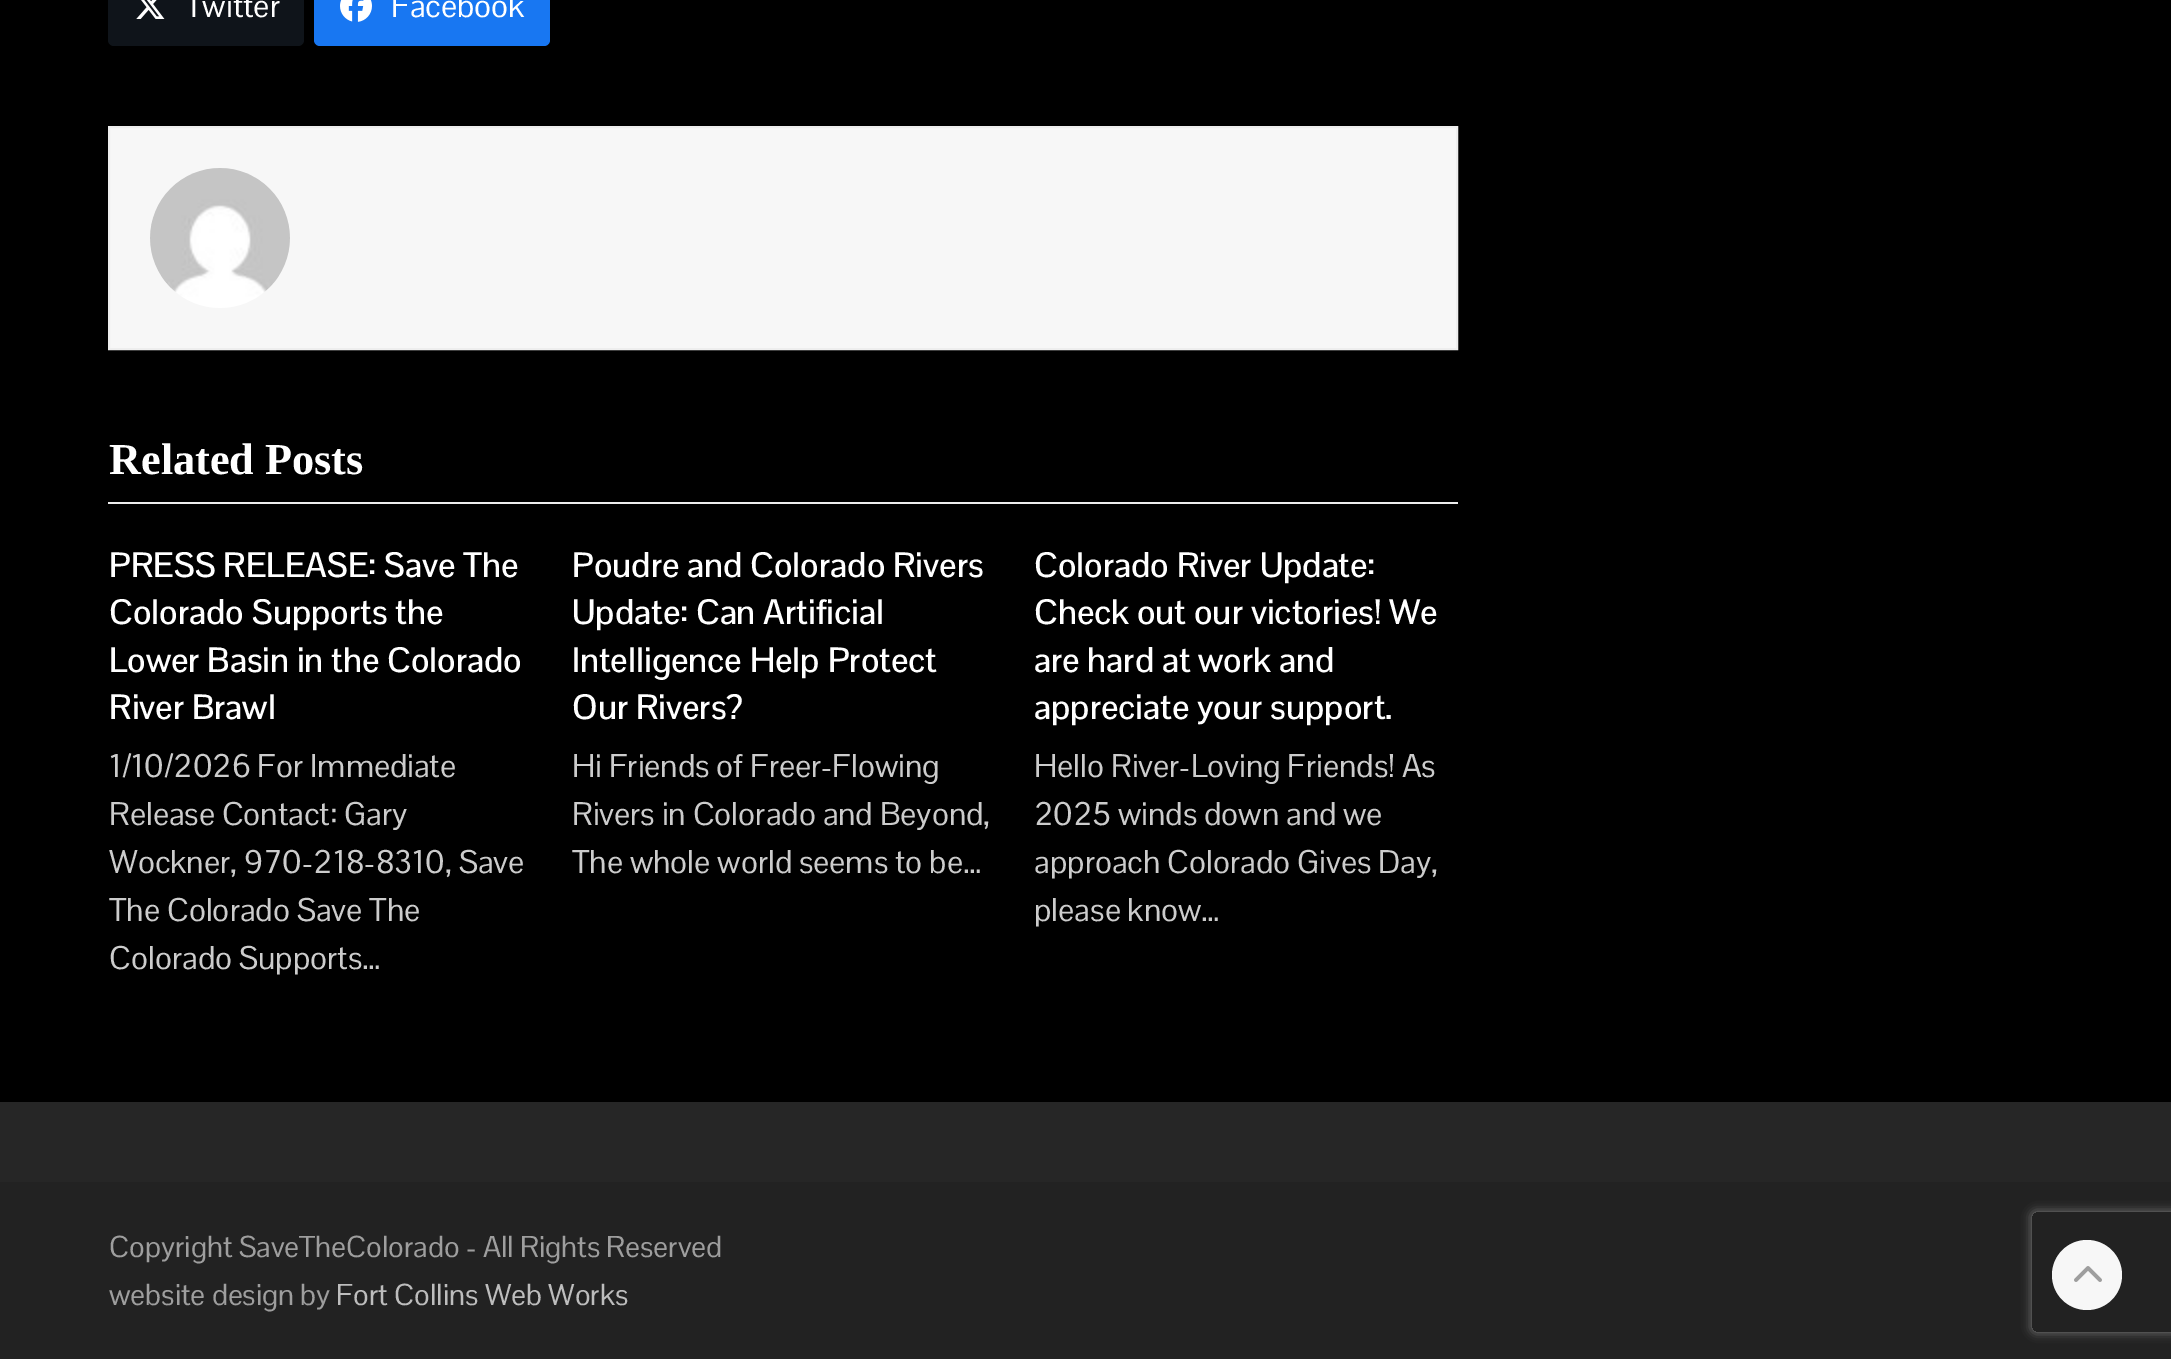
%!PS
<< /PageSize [2171 1359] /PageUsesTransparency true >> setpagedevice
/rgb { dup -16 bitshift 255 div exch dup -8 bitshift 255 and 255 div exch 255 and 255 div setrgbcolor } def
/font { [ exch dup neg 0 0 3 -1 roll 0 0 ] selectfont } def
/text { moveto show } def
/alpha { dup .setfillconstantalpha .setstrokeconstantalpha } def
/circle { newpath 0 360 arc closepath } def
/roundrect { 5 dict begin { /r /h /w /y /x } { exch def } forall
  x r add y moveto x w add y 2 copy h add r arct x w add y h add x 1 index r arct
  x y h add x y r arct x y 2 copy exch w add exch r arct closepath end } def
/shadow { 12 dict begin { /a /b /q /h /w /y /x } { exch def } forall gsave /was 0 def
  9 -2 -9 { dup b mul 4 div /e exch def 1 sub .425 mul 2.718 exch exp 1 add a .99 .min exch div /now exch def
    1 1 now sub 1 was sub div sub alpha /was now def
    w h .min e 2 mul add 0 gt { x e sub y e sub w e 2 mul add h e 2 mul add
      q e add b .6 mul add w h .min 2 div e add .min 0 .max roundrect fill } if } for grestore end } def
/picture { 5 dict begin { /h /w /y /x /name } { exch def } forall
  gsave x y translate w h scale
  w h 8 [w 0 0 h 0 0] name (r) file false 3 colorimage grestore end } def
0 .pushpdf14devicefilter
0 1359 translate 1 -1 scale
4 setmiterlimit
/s1 { /PontanoSans-Regular 32 font 16#FFFFFF rgb } def
/s2 { /LiberationSerif-Bold 44.25 font 16#FFFFFF rgb } def
/s3 { /PontanoSans-SemiBold 34.5 font 16#FFFFFF rgb } def
/s4 { /PontanoSans-Regular 32 font 16#CCCCCC rgb } def
/s5 { /PontanoSans-Regular 29.5 font 16#9E9E9E rgb } def
/s6 { /PontanoSans-Regular 29.5 font 16#BDBDBD rgb } def
16#000000 rgb
0 0 2171 1359 rectfill
16#0F141A rgb
108 -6 196 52 6 roundrect fill
(pic1.raw) 136 0 29 19 picture
s1
(Twitter) 185 17 text
16#1877F2 rgb
314 -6 236 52 6 roundrect fill
(pic2.raw) 340 0 32 22 picture
s1
(Facebook) 391 17 text
16#F7F7F7 rgb
109 127 moveto 1457 127 lineto 1457 349 lineto 109 349 lineto closepath gsave fill grestore
16#EEEEEE rgb
2 setlinewidth
stroke
(pic3.raw) 150 168 140 140 picture
108 502 1350 2 rectfill
s2
(Related Posts) 109 474 text
s3
(PRESS RELEASE: Save The) 109 577 text
(Colorado Supports the) 109 624 text
(Lower Basin in the Colorado) 109 672 text
(River Brawl) 109 719 text
s4
(1/10/2026 For Immediate) 109 777 text
(Release Contact: Gary) 109 825 text
(Wockner, 970-218-8310, Save) 109 873 text
(The Colorado Save The) 109 921 text
(Colorado Supports…) 109 969 text
s3
(Poudre and Colorado Rivers) 572 577 text
(Update: Can Artificial) 572 624 text
(Intelligence Help Protect) 572 672 text
(Our Rivers?) 572 719 text
s4
(Hi Friends of Freer-Flowing) 572 777 text
(Rivers in Colorado and Beyond,) 572 825 text
(The whole world seems to be…) 572 873 text
s3
(Colorado River Update:) 1034 577 text
(Check out our victories! We) 1034 624 text
(are hard at work and) 1034 672 text
(appreciate your support.) 1034 719 text
s4
(Hello River-Loving Friends! As) 1034 777 text
(2025 winds down and we) 1034 825 text
(approach Colorado Gives Day,) 1034 873 text
(please know…) 1034 921 text
16#262626 rgb
0 1102 2171 80 rectfill
16#222222 rgb
0 1182 2171 177 rectfill
s5
(Copyright SaveTheColorado - All Rights Reserved) 109 1257 text
(website design by) 109 1305 text
s6
(Fort Collins Web Works) 336 1305 text
gsave
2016 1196 moveto 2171 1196 lineto 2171 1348 lineto 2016 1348 lineto closepath 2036 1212 moveto 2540 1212 lineto 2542 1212 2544 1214 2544 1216 curveto 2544 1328 lineto 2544 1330 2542 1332 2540 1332 curveto 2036 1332 lineto 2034 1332 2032 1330 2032 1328 curveto 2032 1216 lineto 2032 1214 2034 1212 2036 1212 curveto closepath eoclip newpath
16#808080 rgb
2032 1212 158 120 4 5 1 shadow
grestore
16#F7F7F7 rgb
2087 1275 35 circle fill
(pic4.raw) 2074 1266 28 16 picture
.poppdf14devicefilter showpage
